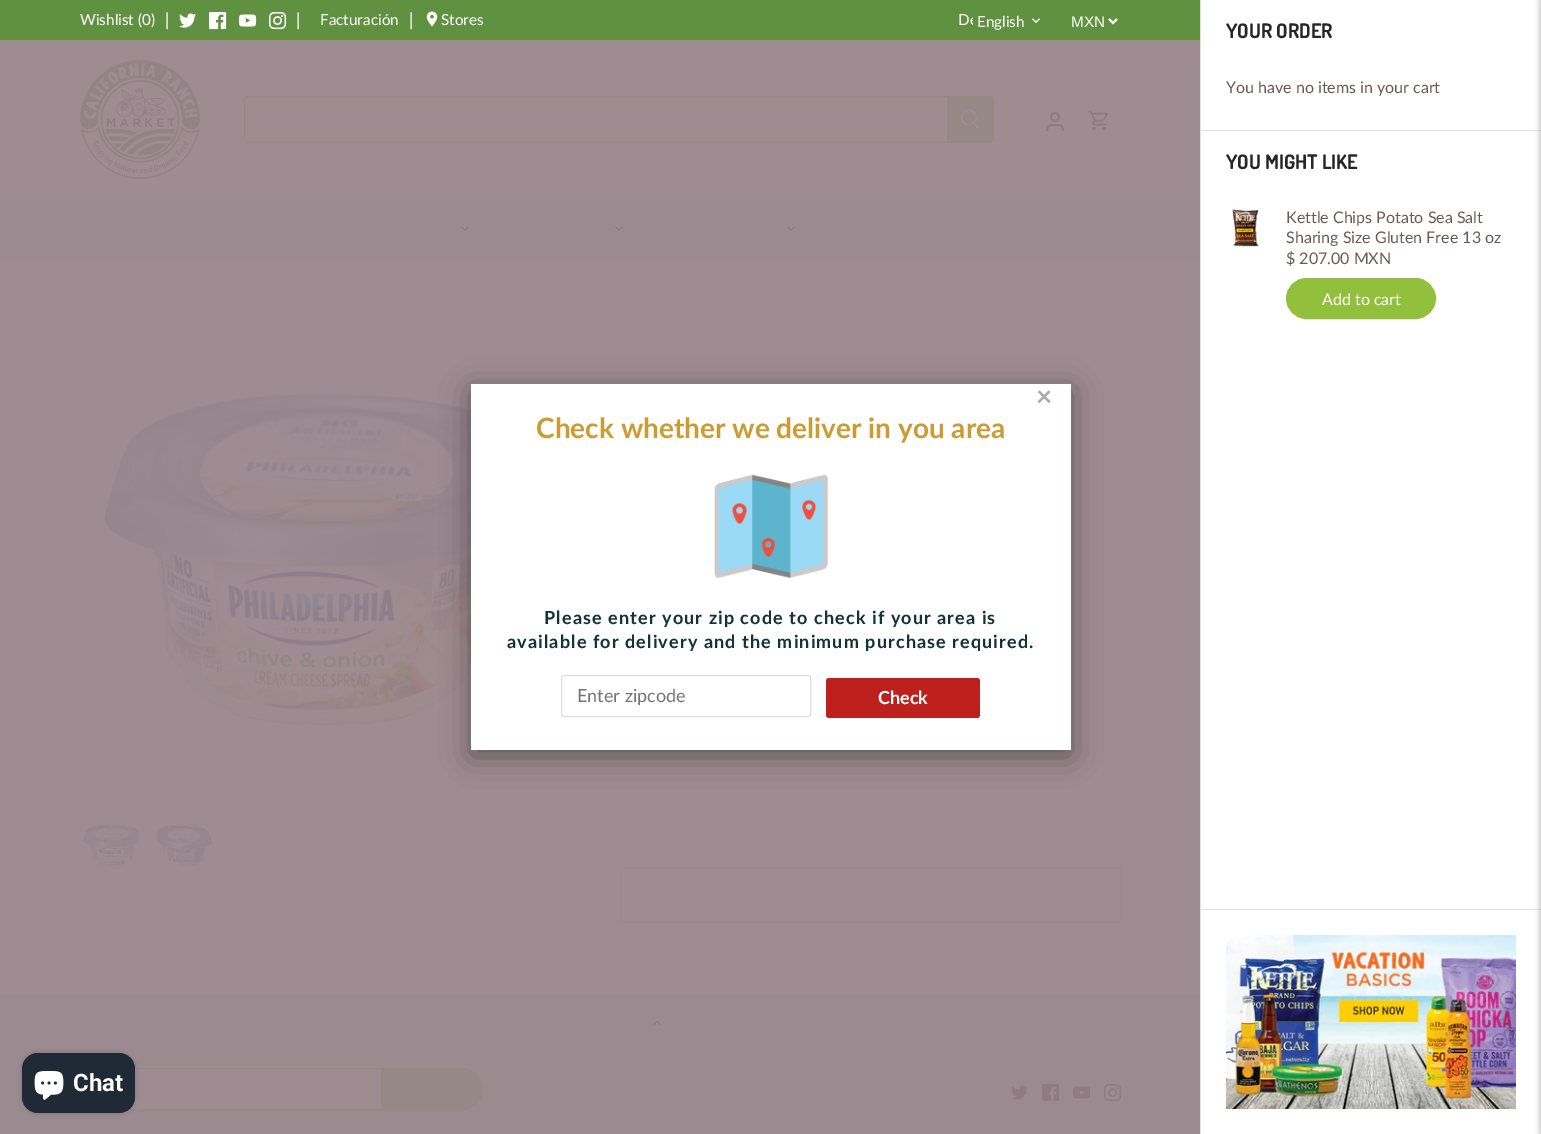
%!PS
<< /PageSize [1541 1134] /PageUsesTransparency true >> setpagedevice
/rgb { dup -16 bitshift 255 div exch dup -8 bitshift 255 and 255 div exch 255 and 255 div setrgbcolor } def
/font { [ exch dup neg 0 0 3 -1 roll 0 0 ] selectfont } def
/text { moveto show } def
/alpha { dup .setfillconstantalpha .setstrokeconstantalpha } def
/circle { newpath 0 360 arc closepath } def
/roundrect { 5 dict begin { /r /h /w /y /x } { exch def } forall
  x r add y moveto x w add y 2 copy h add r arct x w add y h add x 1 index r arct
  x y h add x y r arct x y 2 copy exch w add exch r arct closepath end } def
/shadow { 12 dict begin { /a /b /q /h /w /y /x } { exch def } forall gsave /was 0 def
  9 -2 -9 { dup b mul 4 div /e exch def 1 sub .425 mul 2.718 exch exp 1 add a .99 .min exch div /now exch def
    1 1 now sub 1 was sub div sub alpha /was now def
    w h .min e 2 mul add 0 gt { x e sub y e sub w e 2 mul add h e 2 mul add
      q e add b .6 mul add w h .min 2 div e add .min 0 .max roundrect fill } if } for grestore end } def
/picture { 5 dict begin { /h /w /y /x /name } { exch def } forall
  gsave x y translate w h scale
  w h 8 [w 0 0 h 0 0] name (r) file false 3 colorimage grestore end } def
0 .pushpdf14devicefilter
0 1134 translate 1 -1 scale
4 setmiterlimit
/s1 { /Lato-Regular 15.25 font 16#FFFFFF rgb } def
/s2 { /Lato-Regular 18 font 16#FFFFFF rgb } def
/s3 { /LiberationSans-Regular 15.25 font 16#FFFFFF rgb } def
/s4 { /Lato-Bold 28 font 16#AAAAAA rgb } def
/s5 { /Lato-Bold 28 font 16#CC9C33 rgb } def
/s6 { /Lato-Regular 18 font 16#757575 rgb } def
/s7 { /Lato-Bold 18 font 16#FFFFFF rgb } def
/s8 { /Dosis-Bold 20 font 16#262626 rgb } def
/s9 { /Lato-Regular 16 font 16#655C59 rgb } def
/s10 { /Lato-Regular 16 font 16#FFFFFF rgb } def
/s11 { /Roboto-Bold 24 font 16#FFFFFF rgb } def
16#9B8A8F rgb
0 0 1541 1134 rectfill
16#9E8C92 rgb
0 258 1200 735 rectfill
16#609140 rgb
0 0 1200 40 rectfill
s1
(Wishlist \(0\)) 80 25 text
s2
(|) 165 26 text
(pic1.raw) 179 13 17 15 picture
(pic2.raw) 209 12 18 18 picture
(pic3.raw) 239 14 18 13 picture
(pic4.raw) 269 12 18 18 picture
(|) 296 26 text
s1
(Facturación) 320 25 text
s2
(|) 409 26 text
(pic5.raw) 426 11 12 16 picture
s1
(Stores) 441 25 text
gsave
484 8 489 24 rectclip
(De) 958 25 text
grestore
(English) 977 27 text
(pic6.raw) 1032 18 8 5 picture
2 setlinewidth
1109 19 moveto 1113 23 lineto 1117 19 lineto stroke
s3
(MXN) 1071 27 text
16#9E8C92 rgb
0 40 1200 159 rectfill
(pic7.raw) 80 60 120 119 picture
16#968884 rgb
1 setlinewidth
244.5 96.5 749 46 2.5 roundrect stroke
947 97 moveto 991 97 lineto 992 97 993 98 993 99 curveto 993 140 lineto 993 141 992 142 991 142 curveto 947 142 lineto closepath fill
(pic8.raw) 960 109 20 20 picture
16#8E7C83 rgb
2 setlinewidth
1055 117 4 circle stroke
1063 131 moveto 1063 124.5 1060.5 125 1055 125 curveto 1049.5 125 1047 124.5 1047 131 curveto stroke
(pic9.raw) 1088 110 20 21 picture
(pic10.raw) 461 226 8 5 picture
(pic10.raw) 615 226 8 5 picture
(pic10.raw) 787 226 8 5 picture
(pic12.raw) 103 393 368 336 picture
16#000000 rgb
471 390 600 366 0 15 0.4 shadow
16#FFFFFF rgb
471 384 600 366 rectfill
s4
(×) 1036 406 text
s5
(Check whether we deliver in you area) 536 438 text
(pic11.raw) 714 474 115 105 picture
/Lato-Bold 18 font
16#133337 rgb
544 624 moveto 1.12 0 (Please enter your zip code to check if your area is) ashow
507 648 moveto 1.12 0 (available for delivery and the minimum purchase required.) ashow
16#DFDDDC rgb
1 setlinewidth
561.5 675.5 249 41 2.5 roundrect stroke
s6
(Enter zipcode) 577 702 text
16#BE201E rgb
826 678 154 40 3 roundrect fill
s7
(Check) 878 704 text
(pic13.raw) 83 824 57 44 picture
(pic14.raw) 156 824 57 44 picture
16#9B8A90 rgb
620.5 867.5 500 54 rectstroke
(pic15.raw) 653 1020 8 6 picture
16#9E8C92 rgb
80.5 1068.5 401 41 20.5 roundrect gsave fill grestore
16#968884 rgb
stroke
381.5 1068.5 moveto 462 1068.5 lineto 473.5 1068.5 482.5 1077.5 482.5 1089 curveto 482.5 1100.5 473.5 1109.5 462 1109.5 curveto 381.5 1109.5 lineto closepath gsave fill grestore
stroke
(pic16.raw) 1011 1085 17 15 picture
(pic17.raw) 1042 1084 18 18 picture
(pic18.raw) 1073 1086 18 13 picture
(pic19.raw) 1104 1084 18 18 picture
16#FFFFFF rgb
1201 0 340 1134 rectfill
16#E2E2E2 rgb
1200 0 1 1134 rectfill
s8
(YOUR ORDER) 1226 38 text
s9
(You have no items in your cart) 1226 93 text
16#E2E2E2 rgb
1201 130 340 1 rectfill
s8
(YOU MIGHT LIKE) 1226 169 text
(pic20.raw) 1232 207 29 40 picture
s9
(Kettle Chips Potato Sea Salt) 1286 223 text
(Sharing Size Gluten Free 13 oz) 1286 243 text
($ 207.00 MXN) 1286 264 text
16#92C03C rgb
1287 279 148 39 19.5 roundrect gsave fill grestore
2 setlinewidth
stroke
s10
(Add to cart) 1322 305 text
16#E2E2E2 rgb
1201 909 340 1 rectfill
(pic21.raw) 1226 935 290 174 picture
16#000000 rgb
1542 0 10 1134 0 3.5 0.5 shadow
22 1053 113 60 16 2.5 0.15 shadow
16#202A36 rgb
22 1053 113 60 16 roundrect fill
(pic22.raw) 34 1071 30 29 picture
s11
(Chat) 73 1091 text
.poppdf14devicefilter showpage
